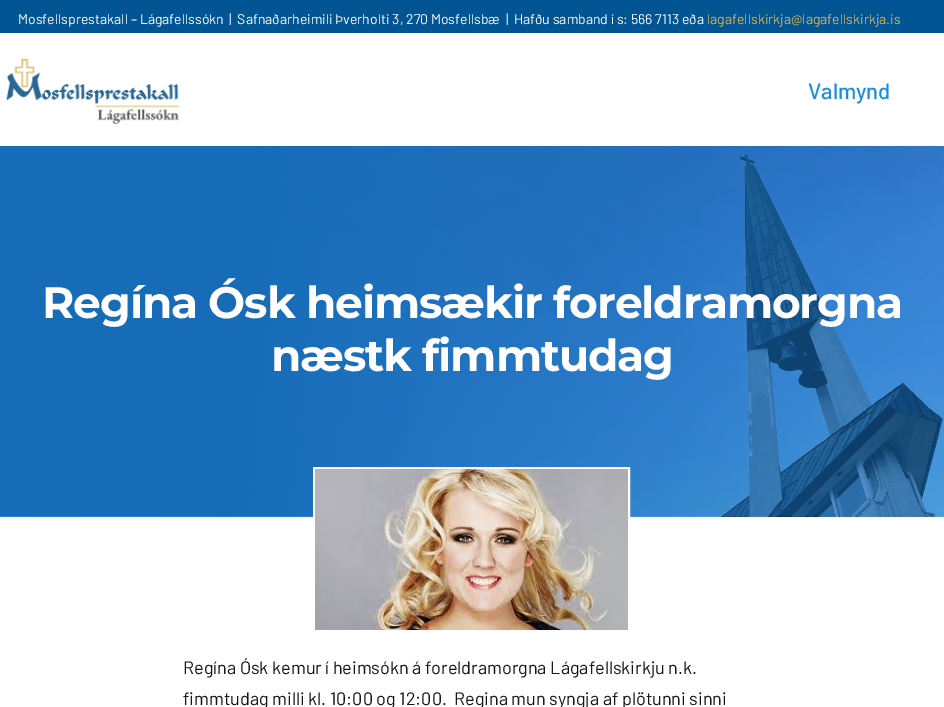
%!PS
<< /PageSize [944 707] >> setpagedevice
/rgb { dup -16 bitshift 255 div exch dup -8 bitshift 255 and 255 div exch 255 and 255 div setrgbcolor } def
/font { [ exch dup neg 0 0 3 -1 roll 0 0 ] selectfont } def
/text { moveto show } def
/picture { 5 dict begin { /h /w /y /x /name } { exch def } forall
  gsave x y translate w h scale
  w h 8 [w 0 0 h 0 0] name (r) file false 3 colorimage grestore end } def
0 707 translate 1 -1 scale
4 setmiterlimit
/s1 { /Barlow-Regular 14 font 16#FFFFFF rgb } def
/s2 { /Barlow-Regular 14 font 16#D8B351 rgb } def
/s3 { /Barlow-Medium 22 font 16#198FD9 rgb } def
/s4 { /Barlow-Regular 18 font 16#141617 rgb } def
16#FFFFFF rgb
0 0 944 707 rectfill
16#025593 rgb
0 0 944 33 rectfill
s1
(Mosfellsprestakall – Lágafellssókn  |  Safnaðarheimili Þverholti 3, 270 Mosfellsbæ  |  Hafðu samband í s: 566 7113 eða) 18 24 text
s2
(lagafellskirkja@lagafellskirkja.is) 707 24 text
(pic1.raw) 6 58 174 67 picture
s3
(Valmynd) 808 99 text
(pic2.raw) 0 146 944 371 picture
/Montserrat-Thin 44 font
16#FFFFFF rgb
42 318 moveto -1.1 0 (Regína Ósk heimsækir foreldramorgna) ashow
271 371 moveto -1.1 0 (næstk fimmtudag) ashow
2 setlinewidth
314 468 315 163 rectstroke
(pic3.raw) 315 469 313 161 picture
s4
(Regína Ósk kemur í heimsókn á foreldramorgna Lágafellskirkju n.k.) 183 674 text
(fimmtudag milli kl. 10:00 og 12:00.  Regina mun syngja af plötunni sinni) 183 705 text
showpage
